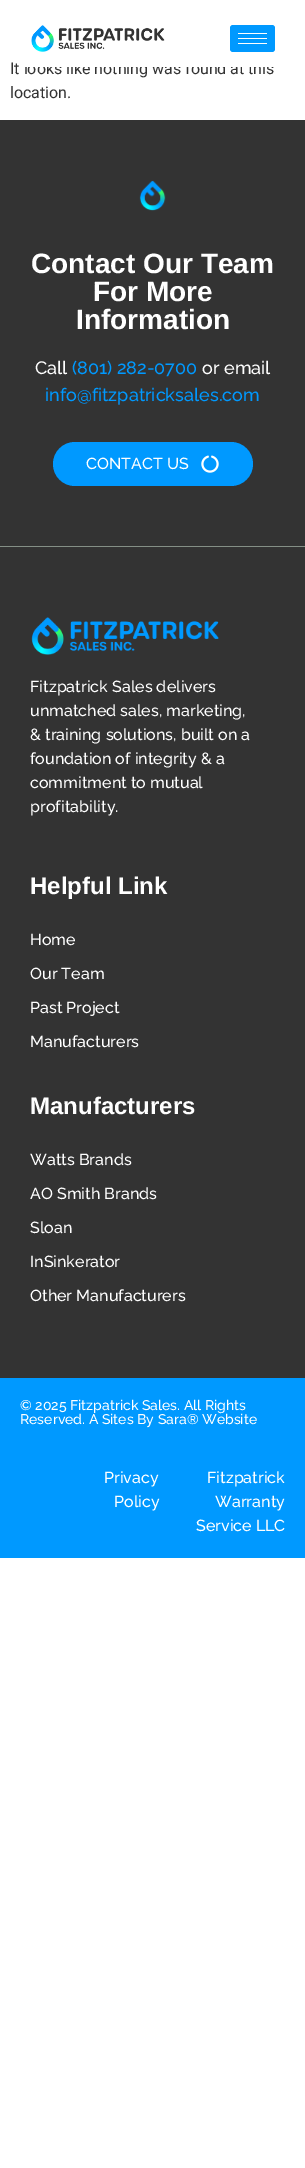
%!PS
<< /PageSize [305 2168] >> setpagedevice
/rgb { dup -16 bitshift 255 div exch dup -8 bitshift 255 and 255 div exch 255 and 255 div setrgbcolor } def
/font { [ exch dup neg 0 0 3 -1 roll 0 0 ] selectfont } def
/text { moveto show } def
/roundrect { 5 dict begin { /r /h /w /y /x } { exch def } forall
  x r add y moveto x w add y 2 copy h add r arct x w add y h add x 1 index r arct
  x y h add x y r arct x y 2 copy exch w add exch r arct closepath end } def
/picture { 5 dict begin { /h /w /y /x /name } { exch def } forall
  gsave x y translate w h scale
  w h 8 [w 0 0 h 0 0] name (r) file false 3 colorimage grestore end } def
0 2168 translate 1 -1 scale
4 setmiterlimit
/s1 { /Roboto-Regular 16 font 16#333333 rgb } def
/s2 { /LiberationSans-Bold 28 font 16#FFFFFF rgb } def
/s3 { /Raleway-Medium 18 font 16#FFFFFF rgb } def
/s4 { /Raleway-Medium 18 font 16#0099FF rgb } def
/s5 { /Raleway-Medium 16 font 16#FFFFFF rgb } def
/s6 { /LiberationSans-Bold 24 font 16#FFFFFF rgb } def
/s7 { /Raleway-Medium 14 font 16#FFFFFF rgb } def
16#FFFFFF rgb
0 0 305 2168 rectfill
s1
(It looks like nothing was found at this) 10 74 text
16#FFFFFF rgb
15 10 275 57 10 roundrect fill
(pic1.raw) 31 25 134 27 picture
16#0099FF rgb
230 25 45 27 3 roundrect fill
16#FFFFFF rgb
238 33 29 1 rectfill
238 38 29 1 rectfill
238 43 29 1 rectfill
s1
(location.) 10 98 text
0 120 305 426 rectfill
(pic2.raw) 139 180 27 31 picture
s2
(Contact Our Team) 31 273 text
(For More) 93 301 text
(Information) 76 329 text
s3
(Call) 35 374 text
s4
(\(801\) 282-0700) 72 374 text
s3
(or email) 202 374 text
s4
(info@fitzpatricksales.com) 45 401 text
53 442 200 44 22 roundrect fill
s5
(CONTACT US) 86 469 text
(pic3.raw) 201 455 18 18 picture
16#333333 rgb
0 547 305 831 rectfill
16#848F86 rgb
0 546 305 1 rectfill
(pic4.raw) 31 617 188 38 picture
s5
(Fitzpatrick Sales delivers) 30 692 text
(unmatched sales, marketing,) 30 716 text
(& training solutions, built on a) 30 740 text
(foundation of integrity & a) 30 764 text
(commitment to mutual) 30 788 text
(profitability.) 30 812 text
s6
(Helpful Link) 30 894 text
s5
(Home) 30 945 text
(Our Team) 30 979 text
(Past Project) 30 1013 text
(Manufacturers) 30 1047 text
s6
(Manufacturers) 30 1114 text
s5
(Watts Brands) 30 1165 text
(AO Smith Brands) 30 1199 text
(Sloan) 30 1233 text
(InSinkerator) 30 1267 text
(Other Manufacturers) 30 1301 text
16#0099FF rgb
0 1378 305 180 rectfill
s7
(© 2025 Fitzpatrick Sales. All Rights) 20 1410 text
(Reserved. A Sites By Sara® Website) 20 1424 text
s5
(Privacy) 104 1483 text
(Policy) 114 1507 text
(Fitzpatrick) 207 1483 text
(Warranty) 215 1507 text
(Service LLC) 196 1531 text
showpage
